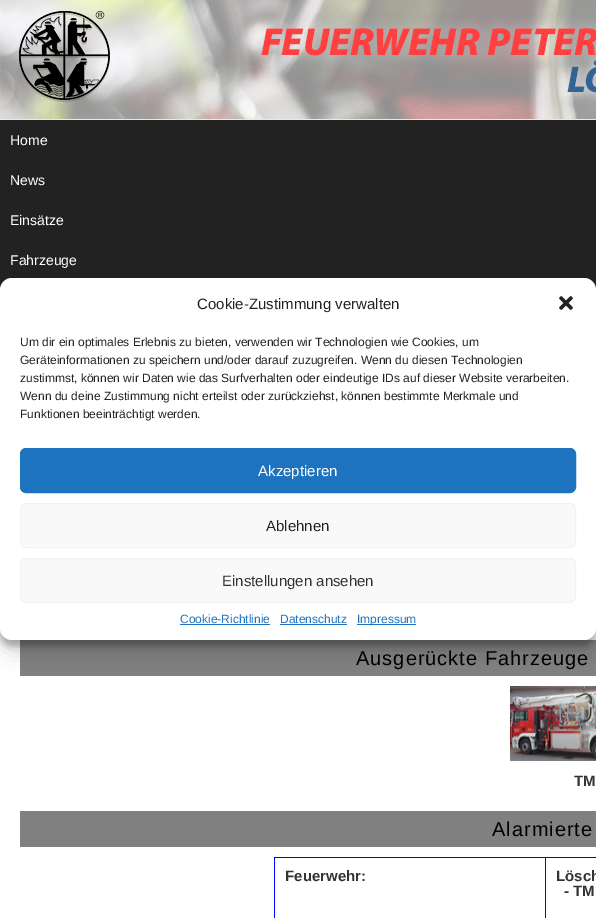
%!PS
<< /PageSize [596 918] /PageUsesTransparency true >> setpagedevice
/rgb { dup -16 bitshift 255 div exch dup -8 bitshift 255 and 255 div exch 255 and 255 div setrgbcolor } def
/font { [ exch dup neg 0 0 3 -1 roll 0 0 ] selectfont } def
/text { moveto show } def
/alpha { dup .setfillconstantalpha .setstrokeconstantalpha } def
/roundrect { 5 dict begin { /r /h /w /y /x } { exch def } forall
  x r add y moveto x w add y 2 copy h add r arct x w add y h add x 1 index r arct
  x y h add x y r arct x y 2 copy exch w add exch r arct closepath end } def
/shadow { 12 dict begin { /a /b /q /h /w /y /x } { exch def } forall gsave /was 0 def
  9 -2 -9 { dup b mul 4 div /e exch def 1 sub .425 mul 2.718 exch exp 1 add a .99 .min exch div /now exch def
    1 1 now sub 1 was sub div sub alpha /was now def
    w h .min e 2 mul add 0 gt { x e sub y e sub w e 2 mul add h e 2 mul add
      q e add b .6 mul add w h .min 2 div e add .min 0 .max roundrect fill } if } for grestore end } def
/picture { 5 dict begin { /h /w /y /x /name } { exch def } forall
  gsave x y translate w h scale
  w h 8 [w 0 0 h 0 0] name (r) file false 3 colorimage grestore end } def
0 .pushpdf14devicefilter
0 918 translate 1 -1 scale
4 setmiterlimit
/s1 { /LiberationSans-Regular 14 font 16#FFFFFF rgb } def
/s2 { /LiberationSans-Bold 15 font 16#333333 rgb } def
/s3 { /LiberationSans-Regular 15 font 16#222222 rgb } def
/s4 { /LiberationSans-Regular 12 font 16#222222 rgb } def
/s5 { /LiberationSans-Regular 15 font 16#FFFFFF rgb } def
/s6 { /LiberationSans-Regular 15 font 16#333333 rgb } def
/s7 { /LiberationSans-Regular 12 font 16#1E73BE rgb } def
16#E8E8E8 rgb
0 0 596 918 rectfill
(pic1.raw) 0 0 596 119 picture
16#FFFFFF rgb
0 628 596 290 rectfill
16#222222 rgb
0 120 596 170 rectfill
s1
(Home) 10 145 text
(News) 10 185 text
(Einsätze) 10 225 text
(Fahrzeuge) 10 265 text
16#808080 rgb
20 640 576 36 rectfill
/LiberationSans-Regular 20 font
16#000000 rgb
356 665 moveto 1 0 (Ausgerückte Fahrzeuge) ashow
(pic2.raw) 510 686 86 75 picture
s2
(TM) 574 786 text
16#808080 rgb
20 811 576 36 rectfill
/LiberationSans-Regular 20 font
16#000000 rgb
492 836 moveto 1 0 (Alarmierte) ashow
16#0000FF rgb
545 857 51 1 rectfill
545 857 1 61 rectfill
274 857 272 1 rectfill
274 857 1 61 rectfill
s2
(Feuerwehr:) 285 881 text
(Lösch) 556 881 text
(- TM) 564 896 text
16#000000 rgb
0 284 596 362 12 3 0.23 shadow
0 288 596 362 12 10 0.19 shadow
16#FFFFFF rgb
0 278 596 362 12 roundrect fill
s3
(Cookie-Zustimmung verwalten) 197 309 text
(pic3.raw) 559 296 14 14 picture
s4
(Um dir ein optimales Erlebnis zu bieten, verwenden wir Technologien wie Cookies, um) 20 346 text
(Geräteinformationen zu speichern und/oder darauf zuzugreifen. Wenn du diesen Technologien) 20 364 text
(zustimmst, können wir Daten wie das Surfverhalten oder eindeutige IDs auf dieser Website verarbeiten.) 20 382 text
(Wenn du deine Zustimmung nicht erteilst oder zurückziehst, können bestimmte Merkmale und) 20 400 text
(Funktionen beeinträchtigt werden.) 20 418 text
16#1E73BE rgb
20.5 448.5 555 44 5.5 roundrect gsave fill grestore
stroke
s5
(Akzeptieren) 258 476 text
16#F9F9F9 rgb
20.5 503.5 555 44 5.5 roundrect gsave fill grestore
16#F2F2F2 rgb
stroke
s3
(Ablehnen) 266 531 text
16#F9F9F9 rgb
20.5 558.5 555 44 5.5 roundrect gsave fill grestore
16#F2F2F2 rgb
stroke
s6
(Einstellungen ansehen) 222 586 text
s7
(Cookie-Richtlinie) 180 623 text
180 624 90 1 rectfill
(Datenschutz) 280 623 text
280 624 67 1 rectfill
357 624 59 1 rectfill
(Impressum) 357 623 text
.poppdf14devicefilter showpage
